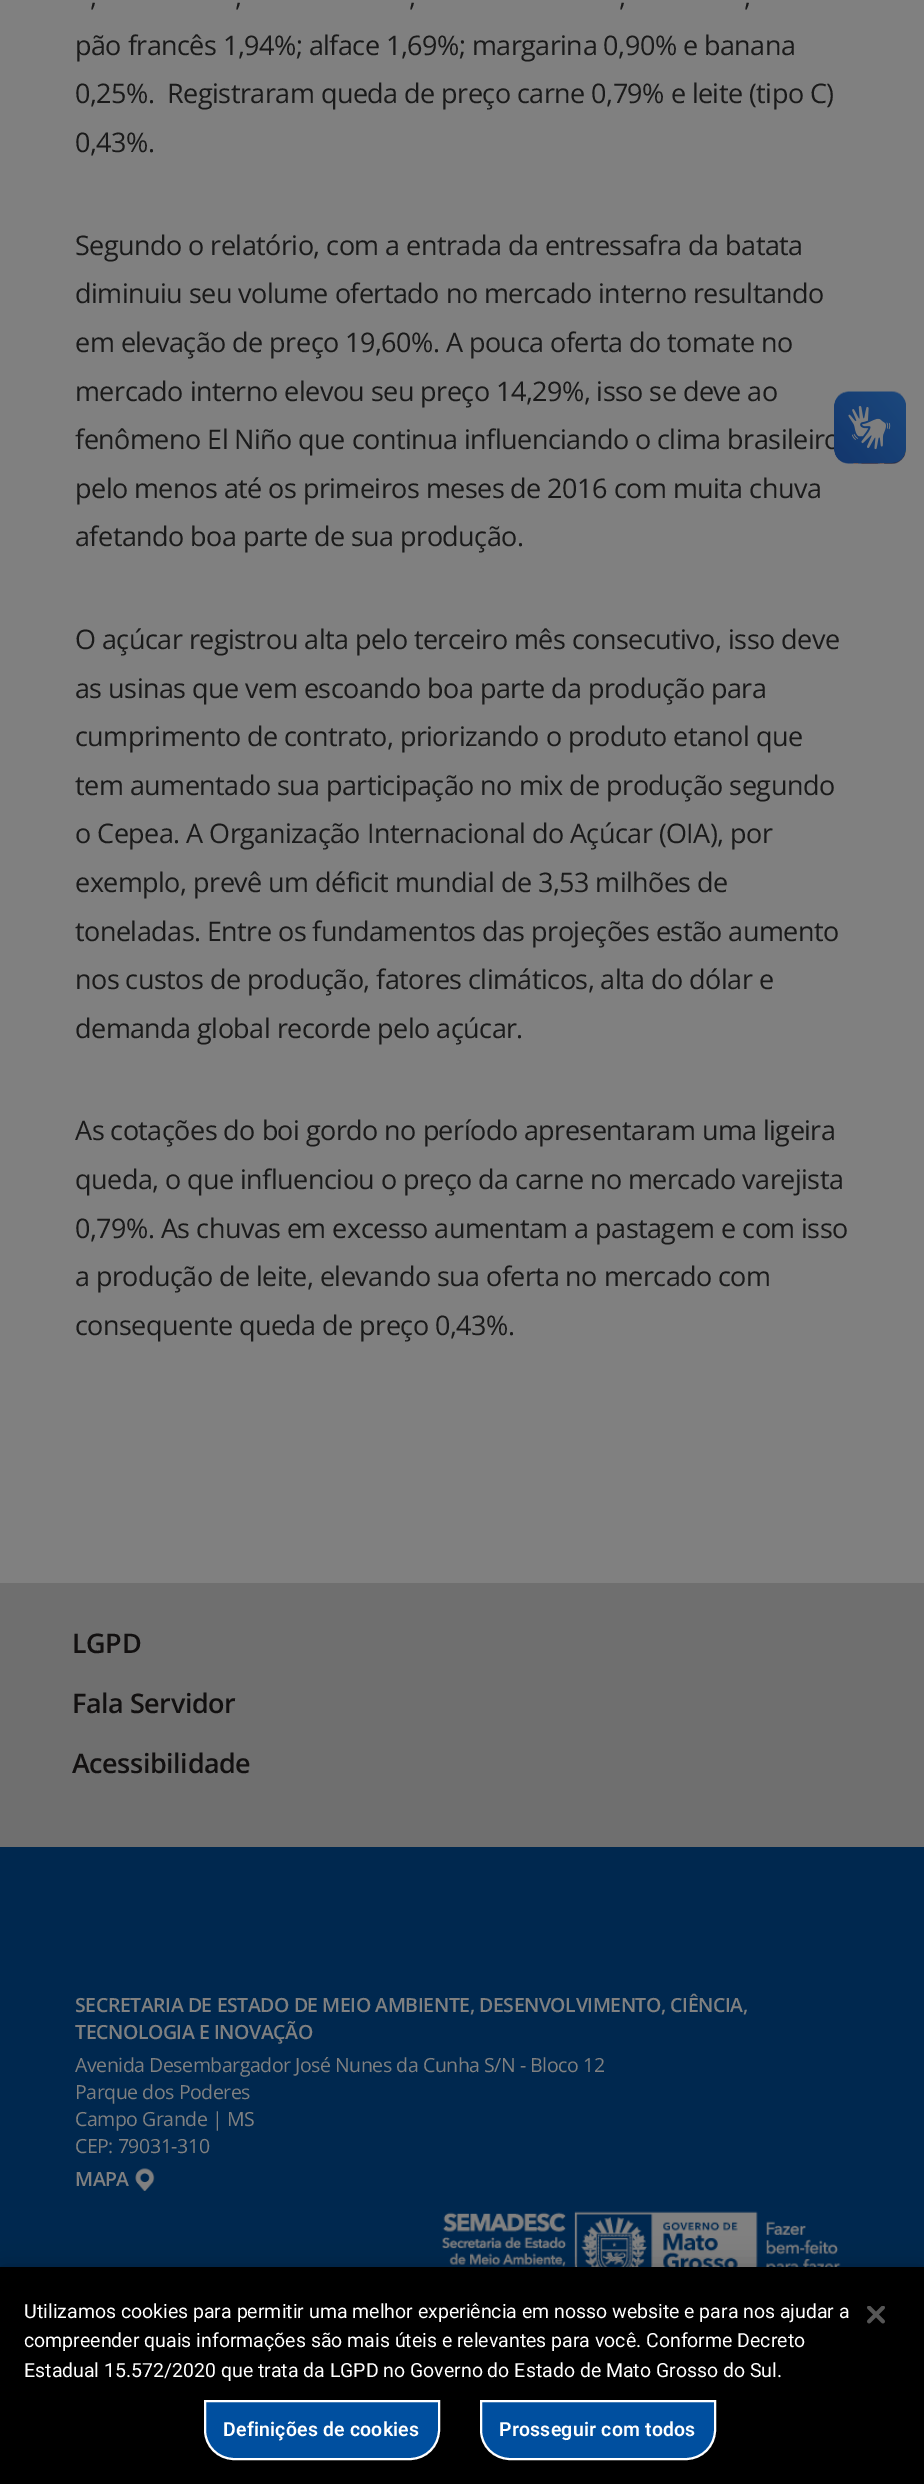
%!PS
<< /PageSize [924 2484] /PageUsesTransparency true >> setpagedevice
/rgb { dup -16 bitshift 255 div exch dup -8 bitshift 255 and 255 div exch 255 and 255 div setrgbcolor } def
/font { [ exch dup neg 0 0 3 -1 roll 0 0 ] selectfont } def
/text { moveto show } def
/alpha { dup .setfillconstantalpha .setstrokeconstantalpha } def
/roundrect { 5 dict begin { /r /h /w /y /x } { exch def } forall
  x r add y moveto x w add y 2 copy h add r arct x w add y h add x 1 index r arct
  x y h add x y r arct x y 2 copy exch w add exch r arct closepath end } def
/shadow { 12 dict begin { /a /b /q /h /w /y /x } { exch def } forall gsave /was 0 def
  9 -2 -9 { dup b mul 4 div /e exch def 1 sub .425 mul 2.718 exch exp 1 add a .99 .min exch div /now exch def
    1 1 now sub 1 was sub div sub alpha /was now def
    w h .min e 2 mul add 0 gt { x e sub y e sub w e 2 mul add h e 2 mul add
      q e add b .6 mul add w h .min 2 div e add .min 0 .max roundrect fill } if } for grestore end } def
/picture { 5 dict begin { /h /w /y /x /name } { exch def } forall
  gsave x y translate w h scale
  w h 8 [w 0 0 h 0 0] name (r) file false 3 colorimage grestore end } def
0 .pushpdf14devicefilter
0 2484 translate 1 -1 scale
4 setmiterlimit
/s1 { /Roboto-Regular 19.5 font 16#FFFFFF rgb } def
16#808080 rgb
0 0 924 2484 rectfill
/OpenSans-Regular 27 font
16#1A1A1A rgb
90 6 moveto -0.55 0 (,) ashow
235 6 moveto -0.55 0 (,) ashow
409 6 moveto -0.55 0 (,) ashow
619 6 moveto -0.55 0 (,) ashow
744 6 moveto -0.55 0 (,) ashow
75 55 moveto -0.55 0 (pão francês 1,94%; alface 1,69%; margarina 0,90% e banana) ashow
75 103 moveto -0.55 0 (0,25%.  Registraram queda de preço carne 0,79% e leite \(tipo C\)) ashow
75 152 moveto -0.55 0 (0,43%.) ashow
75 255 moveto -0.55 0 (Segundo o relatório, com a entrada da entressafra da batata) ashow
75 303 moveto -0.55 0 (diminuiu seu volume ofertado no mercado interno resultando) ashow
75 352 moveto -0.55 0 (em elevação de preço 19,60%. A pouca oferta do tomate no) ashow
75 401 moveto -0.55 0 (mercado interno elevou seu preço 14,29%, isso se deve ao) ashow
75 449 moveto -0.55 0 (fenômeno El Niño que continua influenciando o clima brasileiro) ashow
75 498 moveto -0.55 0 (pelo menos até os primeiros meses de 2016 com muita chuva) ashow
75 546 moveto -0.55 0 (afetando boa parte de sua produção.) ashow
75 649 moveto -0.55 0 (O açúcar registrou alta pelo terceiro mês consecutivo, isso deve) ashow
75 698 moveto -0.55 0 (as usinas que vem escoando boa parte da produção para) ashow
75 746 moveto -0.55 0 (cumprimento de contrato, priorizando o produto etanol que) ashow
75 795 moveto -0.55 0 (tem aumentado sua participação no mix de produção segundo) ashow
75 843 moveto -0.55 0 (o Cepea. A Organização Internacional do Açúcar \(OIA\), por) ashow
75 892 moveto -0.55 0 (exemplo, prevê um déficit mundial de 3,53 milhões de) ashow
75 941 moveto -0.55 0 (toneladas. Entre os fundamentos das projeções estão aumento) ashow
75 989 moveto -0.55 0 (nos custos de produção, fatores climáticos, alta do dólar e) ashow
75 1038 moveto -0.55 0 (demanda global recorde pelo açúcar.) ashow
75 1140 moveto -0.55 0 (As cotações do boi gordo no período apresentaram uma ligeira) ashow
75 1189 moveto -0.55 0 (queda, o que influenciou o preço da carne no mercado varejista) ashow
75 1238 moveto -0.55 0 (0,79%. As chuvas em excesso aumentam a pastagem e com isso) ashow
75 1286 moveto -0.55 0 (a produção de leite, elevando sua oferta no mercado com) ashow
75 1335 moveto -0.55 0 (consequente queda de preço 0,43%.) ashow
(pic1.raw) 834 391 72 73 picture
(pic2.raw) 834 392 72 71 picture
16#6F6F6F rgb
0 1583 924 264 rectfill
/OpenSans-SemiBold 27 font
16#121010 rgb
72 1653 moveto -0.45 0 (LGPD) ashow
72 1713 moveto -0.45 0 (Fala Servidor) ashow
72 1773 moveto -0.45 0 (Acessibilidade) ashow
16#00284F rgb
0 1847 924 420 rectfill
/OpenSans-SemiBold 19.5 font
16#808080 rgb
75 2012 moveto -0.45 0 (SECRETARIA DE ESTADO DE MEIO AMBIENTE, DESENVOLVIMENTO, CIÊNCIA,) ashow
75 2039 moveto -0.45 0 (TECNOLOGIA E INOVAÇÃO) ashow
/OpenSans-Regular 19.5 font
75 2072 moveto -0.45 0 (Avenida Desembargador José Nunes da Cunha S/N - Bloco 12) ashow
75 2099 moveto -0.45 0 (Parque dos Poderes) ashow
75 2126 moveto -0.45 0 (Campo Grande | MS) ashow
75 2153 moveto -0.45 0 (CEP: 79031-310) ashow
/OpenSans-SemiBold 19.5 font
75 2186 moveto -0.45 0 (MAPA) ashow
(pic3.raw) 135 2168 20 23 picture
(pic4.raw) 441 2211 400 56 picture
16#000000 rgb
0 2267 924 217 0 13.5 0.2 shadow
0 2267 924 217 rectfill
s1
(Utilizamos cookies para permitir uma melhor experiência em nosso website e para nos ajudar a) 24 2318 text
(compreender quais informações são mais úteis e relevantes para você. Conforme Decreto) 24 2347 text
(Estadual 15.572/2020 que trata da LGPD no Governo do Estado de Mato Grosso do Sul.) 24 2377 text
16#004F9F rgb
205 2401 moveto 439 2401 lineto 439 2430 lineto 439 2446 426 2459 410 2459 curveto 234 2459 lineto 218 2459 205 2446 205 2430 curveto closepath gsave fill grestore
16#FFFFFF rgb
2 setlinewidth
stroke
/Roboto-SemiBold 19.5 font
223 2436 moveto 0.2 0 (Definições de cookies) ashow
16#004F9F rgb
481 2401 moveto 715 2401 lineto 715 2430 lineto 715 2446 702 2459 686 2459 curveto 510 2459 lineto 494 2459 481 2446 481 2430 curveto closepath gsave fill grestore
16#FFFFFF rgb
stroke
499 2436 moveto 0.2 0 (Prosseguir com todos) ashow
(pic5.raw) 867 2306 18 18 picture
.poppdf14devicefilter showpage
